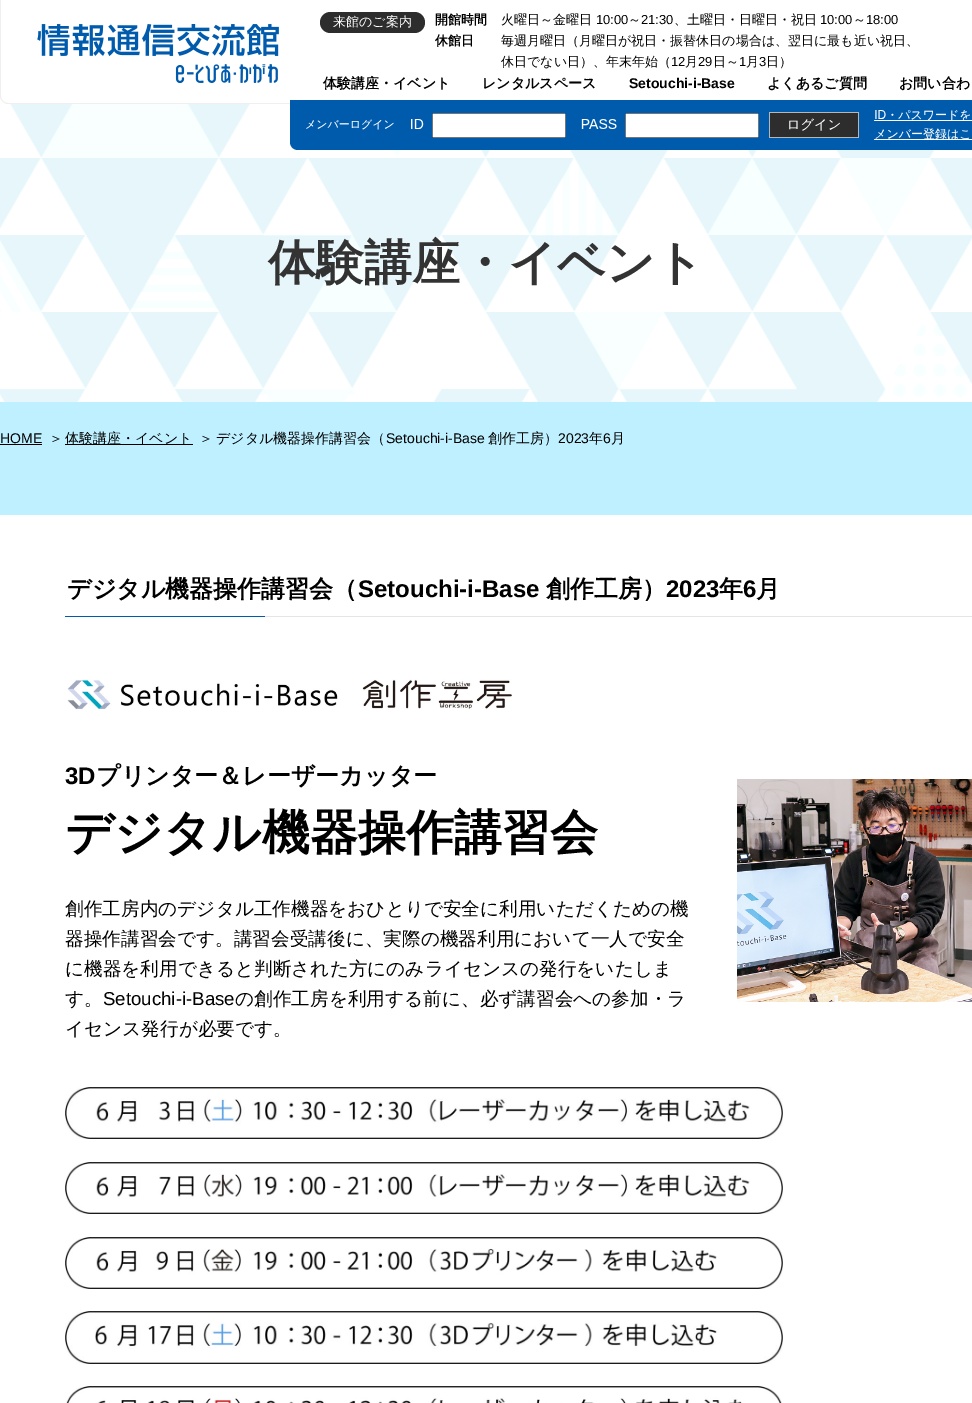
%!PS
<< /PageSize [972 1403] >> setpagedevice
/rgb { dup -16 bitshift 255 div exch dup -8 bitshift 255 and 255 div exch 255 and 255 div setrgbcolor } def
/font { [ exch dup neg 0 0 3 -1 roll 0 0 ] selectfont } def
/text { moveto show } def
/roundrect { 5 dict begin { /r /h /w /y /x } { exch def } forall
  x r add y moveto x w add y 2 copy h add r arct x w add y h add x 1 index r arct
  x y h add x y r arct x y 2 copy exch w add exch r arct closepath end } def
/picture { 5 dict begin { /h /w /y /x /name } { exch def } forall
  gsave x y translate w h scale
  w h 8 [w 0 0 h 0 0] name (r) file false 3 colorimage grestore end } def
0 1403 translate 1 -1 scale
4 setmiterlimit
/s1 { /WenQuanYiZenHei-Medium 13 font 16#FFFFFF rgb } def
/s2 { /WenQuanYiZenHei-Bold 13 font 16#000000 rgb } def
/s3 { /WenQuanYiZenHei-Medium 13 font 16#000000 rgb } def
/s4 { /LiberationSans-Regular 13 font 16#000000 rgb } def
/s5 { /WenQuanYiZenHei-Bold 14 font 16#000000 rgb } def
/s6 { /LiberationSans-Bold 14 font 16#000000 rgb } def
/s7 { /WenQuanYiZenHei-Bold 48 font 16#333333 rgb } def
/s8 { /LiberationSans-Regular 14 font 16#000000 rgb } def
/s9 { /WenQuanYiZenHei-Medium 14 font 16#000000 rgb } def
/s10 { /WenQuanYiZenHei-Bold 24 font 16#000000 rgb } def
/s11 { /LiberationSans-Bold 24 font 16#000000 rgb } def
/s12 { /WenQuanYiZenHei-Bold 48 font 16#000000 rgb } def
/s13 { /WenQuanYiZenHei-Medium 18.65 font 16#000000 rgb } def
/s14 { /LiberationSans-Regular 18.65 font 16#000000 rgb } def
16#BEF0FF rgb
0 0 972 1403 rectfill
(pic3.raw) 0 96 972 306 picture
16#FFFFFF rgb
0 0 moveto 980 0 lineto 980 104 lineto 8 104 lineto 3.5 104 0 100.5 0 96 curveto closepath fill
16#EFEFEF rgb
0 0 moveto 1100 0 lineto 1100 104 lineto 8 104 lineto 4 104 0 100 0 96 curveto closepath 1 0 moveto 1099 0 lineto 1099 103 lineto 8 103 lineto 4 103 1 100 1 96 curveto closepath eofill
16#2D2D2D rgb
320 12 105 21 10.5 roundrect fill
s1
(来館のご案内) 333 26 text
s2
(開館時間) 435 24 text
s3
(火曜日～金曜日) 501 24 text
s4
(10:00) 596 24 text
s3
(～) 628 24 text
s4
(21:30) 641 24 text
s3
(、土曜日・日曜日・祝日) 674 24 text
s4
(10:00) 820 24 text
s3
(～) 853 24 text
s4
(18:00) 866 24 text
s2
(休館日) 435 45 text
s3
(毎週月曜日（月曜日が祝日・振替休日の場合は、翌日に最も近い祝日、) 501 45 text
(休日でない日）、年末年始（) 501 66 text
s4
(12) 671 66 text
s3
(月) 685 66 text
s4
(29) 698 66 text
s3
(日～) 713 66 text
s4
(1) 739 66 text
s3
(月) 746 66 text
s4
(3) 759 66 text
s3
(日）) 766 66 text
(pic1.raw) 37 24 242 59 picture
s5
(体験講座・イベント) 323 88 text
(レンタルスペース) 482 88 text
s6
(Setouchi-i-Base) 629 88 text
s5
(よくあるご質問) 767 88 text
(お問い合わ) 899 88 text
16#005BAC rgb
290 100 moveto 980 100 lineto 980 142 lineto 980 146.5 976.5 150 972 150 curveto 298 150 lineto 293.5 150 290 146.5 290 142 curveto closepath fill
(pic2.raw) 306 110 666 30 picture
s7
(体験講座・イベント) 268 279 text
s8
(HOME) 0 443 text
0 444 42 1 rectfill
s9
(＞) 49 443 text
65 444 128 1 rectfill
(体験講座・イベント) 65 443 text
(＞) 199 443 text
(デジタル機器操作講習会（) 216 443 text
s8
(Setouchi-i-Base) 386 443 text
s9
(創作工房）) 488 443 text
s8
(2023) 558 443 text
s9
(年) 589 443 text
s8
(6) 603 443 text
s9
(月) 611 443 text
16#FFFFFF rgb
0 515 972 888 rectfill
16#E5E5E5 rgb
265 616 707 1 rectfill
s10
(デジタル機器操作講習会（) 67 597 text
s11
(Setouchi-i-Base) 358 597 text
s10
(創作工房）) 546 597 text
s11
(2023) 666 597 text
s10
(年) 719 597 text
s11
(6) 743 597 text
s10
(月) 756 597 text
16#005BAC rgb
65 616 200 1 rectfill
(pic4.raw) 67 679 445 31 picture
s11
(3D) 65 784 text
s10
(プリンター＆レーザーカッター) 96 784 text
s12
(デジタル機器操作講習会) 65 849 text
s13
(創作工房内のデジタル工作機器をおひとりで安全に利用いただくための機) 65 915 text
(器操作講習会です。講習会受講後に、実際の機器利用において一人で安全) 65 945 text
(に機器を利用できると判断された方にのみライセンスの発行をいたしま) 65 975 text
(す。) 65 1005 text
s14
(Setouchi-i-Base) 103 1005 text
s13
(の創作工房を利用する前に、必ず講習会への参加・ラ) 235 1005 text
(イセンス発行が必要です。) 65 1035 text
(pic5.raw) 737 779 235 223 picture
(pic6.raw) 65 1087 718 52 picture
(pic7.raw) 65 1162 718 52 picture
(pic8.raw) 65 1237 718 52 picture
(pic9.raw) 65 1311 718 53 picture
(pic10.raw) 66 1386 716 17 picture
showpage
